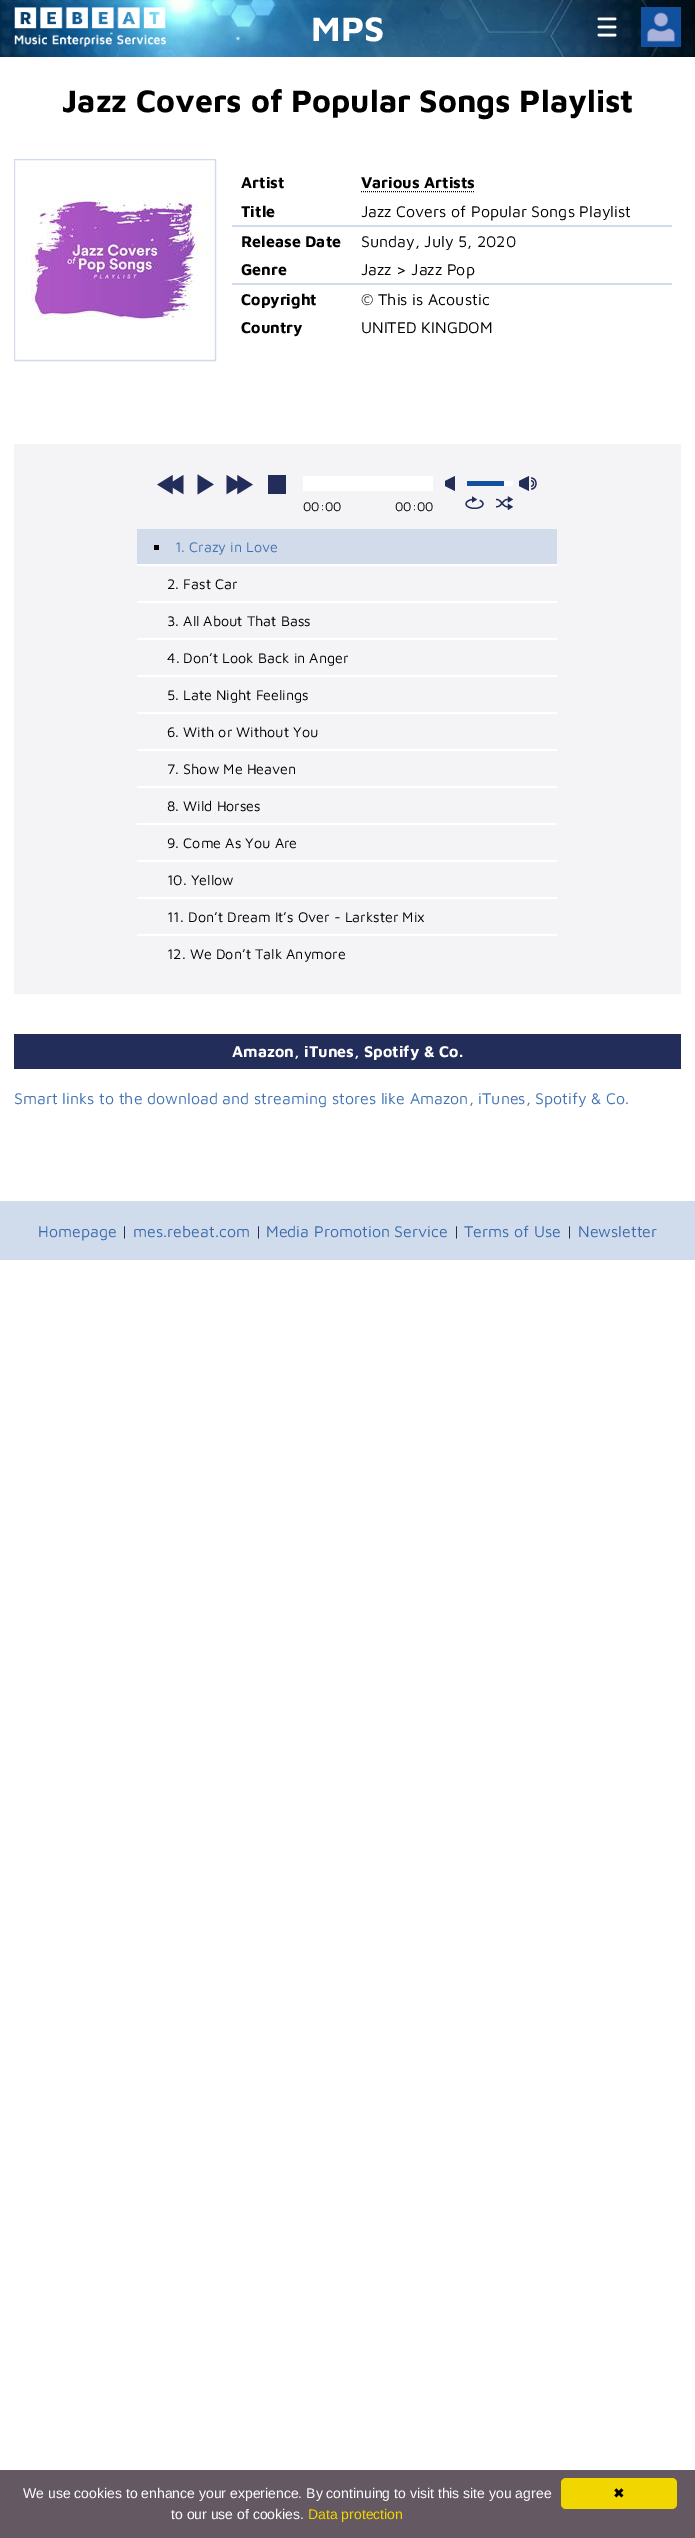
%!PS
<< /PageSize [695 2538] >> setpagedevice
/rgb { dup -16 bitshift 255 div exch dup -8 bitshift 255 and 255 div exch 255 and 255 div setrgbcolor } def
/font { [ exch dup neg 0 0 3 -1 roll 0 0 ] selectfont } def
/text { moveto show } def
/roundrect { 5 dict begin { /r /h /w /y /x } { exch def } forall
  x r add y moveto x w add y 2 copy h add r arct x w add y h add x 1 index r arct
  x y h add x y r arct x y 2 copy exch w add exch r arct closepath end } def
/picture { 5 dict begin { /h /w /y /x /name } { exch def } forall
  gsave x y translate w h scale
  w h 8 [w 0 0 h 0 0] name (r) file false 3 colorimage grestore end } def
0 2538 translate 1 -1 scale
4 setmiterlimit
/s1 { /MavenPro-Bold 35 font 16#FFFFFF rgb } def
/s2 { /MavenPro-Bold 32 font 16#000000 rgb } def
/s3 { /MavenPro-Bold 16 font 16#000000 rgb } def
/s4 { /MavenPro-Regular 16 font 16#000000 rgb } def
/s5 { /MavenPro-Regular 13 font 16#000000 rgb } def
/s6 { /MavenPro-Regular 14.4 font 16#4373B3 rgb } def
/s7 { /MavenPro-Regular 14.4 font 16#000000 rgb } def
/s8 { /MavenPro-Bold 16 font 16#FFFFFF rgb } def
/s9 { /MavenPro-Regular 16 font 16#4373B3 rgb } def
/s10 { /MavenPro-Regular 16 font 16#3A6CAF rgb } def
/s11 { /MavenPro-Regular 16 font 16#232D5A rgb } def
/s12 { /LiberationSans-Regular 14 font 16#FFFFFF rgb } def
/s13 { /LiberationSans-Regular 14 font 16#F1D600 rgb } def
/s14 { /DejaVuSans-Regular 14 font 16#000000 rgb } def
16#FFFFFF rgb
0 0 695 2538 rectfill
(pic1.raw) 0 0 695 57 picture
(pic2.raw) 14 7 152 40 picture
s1
(MPS) 311 41 text
(pic3.raw) 597 17 20 20 picture
(pic4.raw) 641 7 40 40 picture
s2
(Jazz Covers of Popular Songs Playlist) 62 112 text
16#D0DCEC rgb
14.5 159.5 201 201 rectstroke
(pic5.raw) 15 160 200 200 picture
s3
(Artist) 241 188 text
[1 1] 0 setdash
361 191.5 moveto 475 191.5 lineto stroke
(Various Artists) 361 188 text
(Title) 241 217 text
s4
(Jazz Covers of Popular Songs Playlist) 361 217 text
16#D0DCEC rgb
232 225 440 2 rectfill
s3
(Release Date) 241 247 text
s4
(Sunday, July 5, 2020) 361 247 text
s3
(Genre) 241 275 text
s4
(Jazz > Jazz Pop) 361 275 text
16#D0DCEC rgb
232 283 440 2 rectfill
s3
(Copyright) 241 305 text
s4
(© This is Acoustic) 361 305 text
s3
(Country) 241 333 text
s4
(UNITED KINGDOM) 361 333 text
16#F4F4F7 rgb
14 444 667 550 rectfill
(pic6.raw) 157 475 27 20 picture
(pic7.raw) 197 474 17 21 picture
(pic8.raw) 226 475 27 20 picture
16#232D5A rgb
268 475 18 19 rectfill
(pic9.raw) 445 476 10 15 picture
(pic10.raw) 519 476 18 15 picture
16#FFFFFF rgb
303 476 130 15 rectfill
504 481 9 5 rectfill
16#1450A0 rgb
467 481 37 5 rectfill
s5
(00:00) 303 511 text
(00:00) 395 511 text
(pic11.raw) 465 496 19 13 picture
(pic12.raw) 496 496 17 14 picture
16#D2DBEA rgb
137 529 420 35 rectfill
16#FFFFFF rgb
137 564 420 2 rectfill
16#000000 rgb
154 545 5 5 rectfill
s6
(1. Crazy in Love) 175 552 text
16#FFFFFF rgb
137 601 420 2 rectfill
s7
(2. Fast Car) 167 589 text
16#FFFFFF rgb
137 638 420 2 rectfill
s7
(3. All About That Bass) 167 626 text
16#FFFFFF rgb
137 675 420 2 rectfill
s7
(4. Don’t Look Back in Anger) 167 663 text
16#FFFFFF rgb
137 712 420 2 rectfill
s7
(5. Late Night Feelings) 167 700 text
16#FFFFFF rgb
137 749 420 2 rectfill
s7
(6. With or Without You) 167 737 text
16#FFFFFF rgb
137 786 420 2 rectfill
s7
(7. Show Me Heaven) 167 774 text
16#FFFFFF rgb
137 823 420 2 rectfill
s7
(8. Wild Horses) 167 811 text
16#FFFFFF rgb
137 860 420 2 rectfill
s7
(9. Come As You Are) 167 848 text
16#FFFFFF rgb
137 897 420 2 rectfill
s7
(10. Yellow) 167 885 text
16#FFFFFF rgb
137 934 420 2 rectfill
s7
(11. Don’t Dream It’s Over - Larkster Mix) 167 922 text
(12. We Don’t Talk Anymore) 167 959 text
16#232D5A rgb
14 1034 667 35 rectfill
s8
(Amazon, iTunes, Spotify & Co.) 232 1057 text
s9
(Smart links to the download and streaming stores like Amazon, iTunes, Spotify & Co.) 14 1104 text
16#D0DCEC rgb
0 1201 695 59 rectfill
s10
(Homepage) 38 1237 text
s11
(|) 121 1237 text
s10
(mes.rebeat.com) 133 1237 text
s11
(|) 255 1237 text
s10
(Media Promotion Service) 266 1237 text
s11
(|) 453 1237 text
s10
(Terms of Use) 464 1237 text
s11
(|) 566 1237 text
s10
(Newsletter) 578 1237 text
16#645862 rgb
0 2470 695 68 rectfill
s12
(We use cookies to enhance your experience. By continuing to visit this site you agree) 23 2498 text
(to our use of cookies.) 171 2519 text
s13
(Data protection) 308 2519 text
561 2478 116 31 5 roundrect fill
s14
(✖) 613 2498 text
showpage
